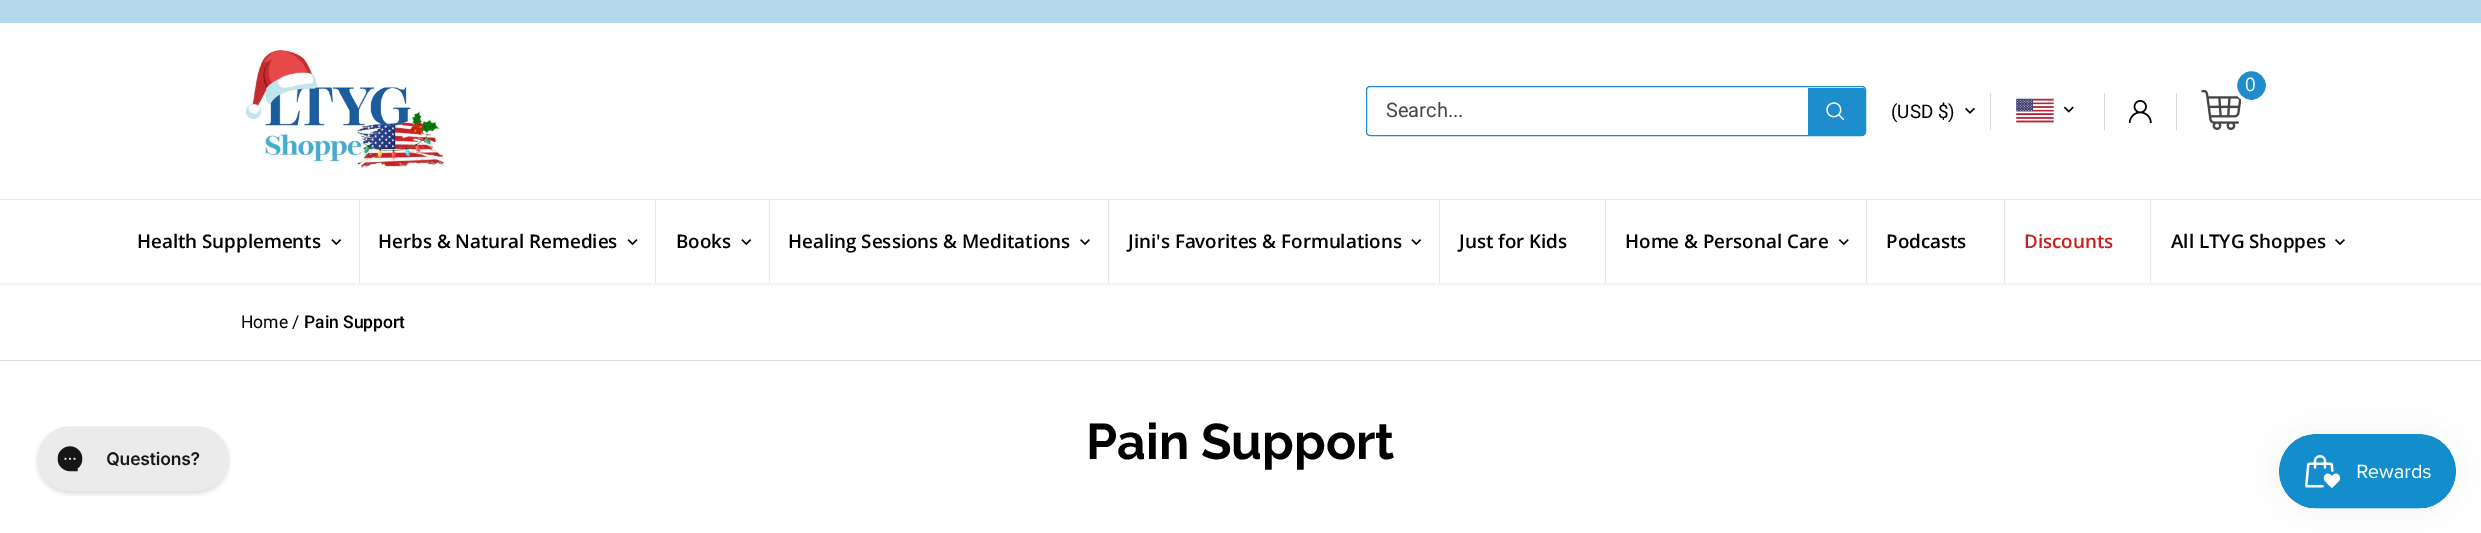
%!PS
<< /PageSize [2481 533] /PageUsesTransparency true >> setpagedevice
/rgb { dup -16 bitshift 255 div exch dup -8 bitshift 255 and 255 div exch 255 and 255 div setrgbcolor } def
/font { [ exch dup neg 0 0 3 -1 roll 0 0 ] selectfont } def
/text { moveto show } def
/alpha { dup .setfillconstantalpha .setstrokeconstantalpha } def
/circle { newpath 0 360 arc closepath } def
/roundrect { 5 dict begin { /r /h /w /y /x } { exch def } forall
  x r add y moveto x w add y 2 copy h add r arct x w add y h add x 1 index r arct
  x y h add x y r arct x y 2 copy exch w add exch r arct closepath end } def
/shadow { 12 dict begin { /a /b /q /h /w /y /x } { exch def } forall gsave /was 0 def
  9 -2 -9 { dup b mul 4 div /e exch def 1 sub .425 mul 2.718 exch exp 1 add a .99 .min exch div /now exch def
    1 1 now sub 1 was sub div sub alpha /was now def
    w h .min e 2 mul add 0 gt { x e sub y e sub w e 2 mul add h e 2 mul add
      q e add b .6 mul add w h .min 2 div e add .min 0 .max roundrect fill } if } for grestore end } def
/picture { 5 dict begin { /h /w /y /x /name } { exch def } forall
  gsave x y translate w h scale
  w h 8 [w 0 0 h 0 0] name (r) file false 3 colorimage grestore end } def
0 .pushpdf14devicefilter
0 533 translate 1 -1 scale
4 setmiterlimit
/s1 { /Roboto-Regular 20 font 16#464646 rgb } def
/s2 { /OpenSans-Regular 18.75 font 16#FFFFFF rgb } def
/s3 { /Roboto-Regular 18.75 font 16#000000 rgb } def
/s4 { /OpenSans-SemiBold 18.75 font 16#000000 rgb } def
/s5 { /OpenSans-SemiBold 18.75 font 16#CD1E1E rgb } def
/s6 { /Roboto-Regular 17.5 font 16#000000 rgb } def
/s7 { /Roboto-Medium 17.5 font 16#000000 rgb } def
/s8 { /Raleway-Thin 50 font 16#000000 rgb } def
16#FFFFFF rgb
0 0 2481 533 rectfill
(pic1.raw) 35 426 196 70 picture
16#000000 rgb
-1 21 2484 263 0 2 0.08 shadow
16#B3D9EA rgb
0 0 2481 23 rectfill
16#FFFFFF rgb
0 23 2481 260 rectfill
(pic2.raw) 245 47 201 121 picture
16#1E8DCD rgb
1366.5 86.5 499 49 3.5 roundrect stroke
s1
(Search...) 1386 117 text
16#1E8DCD rgb
1808 88 moveto 1862.5 88 lineto 1864 88 1865 89 1865 90.5 curveto 1865 132.5 lineto 1865 134 1864 135 1862.5 135 curveto 1808 135 lineto closepath fill
(pic3.raw) 1826 102 19 19 picture
16#D9D9D9 rgb
2176 93 1 37 rectfill
(pic4.raw) 2201 90 40 40 picture
16#1E8DCD rgb
2251.5 85.5 16 circle gsave fill grestore
16#FFFFFF rgb
3 setlinewidth
stroke
s2
(0) 2245 91 text
s3
(\(USD $\)) 1891 118 text
(pic5.raw) 1965 107 10 7 picture
16#D9D9D9 rgb
1990 93 1 37 rectfill
(pic6.raw) 2016 98 38 25 picture
(pic7.raw) 2063 106 11 7 picture
2104 93 1 37 rectfill
(pic8.raw) 2129 100 23 23 picture
16#E6E6E6 rgb
0 199 2481 1 rectfill
359 200 1 83 rectfill
s4
(Health Supplements) 137 248 text
(pic9.raw) 331 239 11 7 picture
16#E6E6E6 rgb
655 200 1 83 rectfill
s4
(Herbs & Natural Remedies) 378 248 text
(pic10.raw) 627 239 11 7 picture
16#E6E6E6 rgb
769 200 1 83 rectfill
s4
(Books) 676 248 text
(pic9.raw) 741 239 11 7 picture
16#E6E6E6 rgb
1108 200 1 83 rectfill
s4
(Healing Sessions & Meditations) 788 248 text
(pic11.raw) 1080 239 10 6 picture
16#E6E6E6 rgb
1439 200 1 83 rectfill
s4
(Jini's Favorites & Formulations) 1128 248 text
(pic9.raw) 1411 239 11 7 picture
16#E6E6E6 rgb
1605 200 1 83 rectfill
s4
(Just for Kids) 1459 248 text
16#E6E6E6 rgb
1866 200 1 83 rectfill
s4
(Home & Personal Care) 1625 248 text
(pic12.raw) 1838 239 11 7 picture
16#E6E6E6 rgb
2004 200 1 83 rectfill
s4
(Podcasts) 1886 248 text
16#E6E6E6 rgb
2150 200 1 83 rectfill
s5
(Discounts) 2024 248 text
s4
(All LTYG Shoppes) 2171 248 text
(pic11.raw) 2335 239 10 6 picture
16#DCDCDC rgb
0 360 2481 1 rectfill
s6
(Home /) 241 328 text
s7
(Pain Support) 304 328 text
s8
(Pain Support) 1086 459 text
2279 434 177 75 37.5 15.5 0.05 shadow
(pic13.raw) 2279 434 177 75 picture
.poppdf14devicefilter showpage
